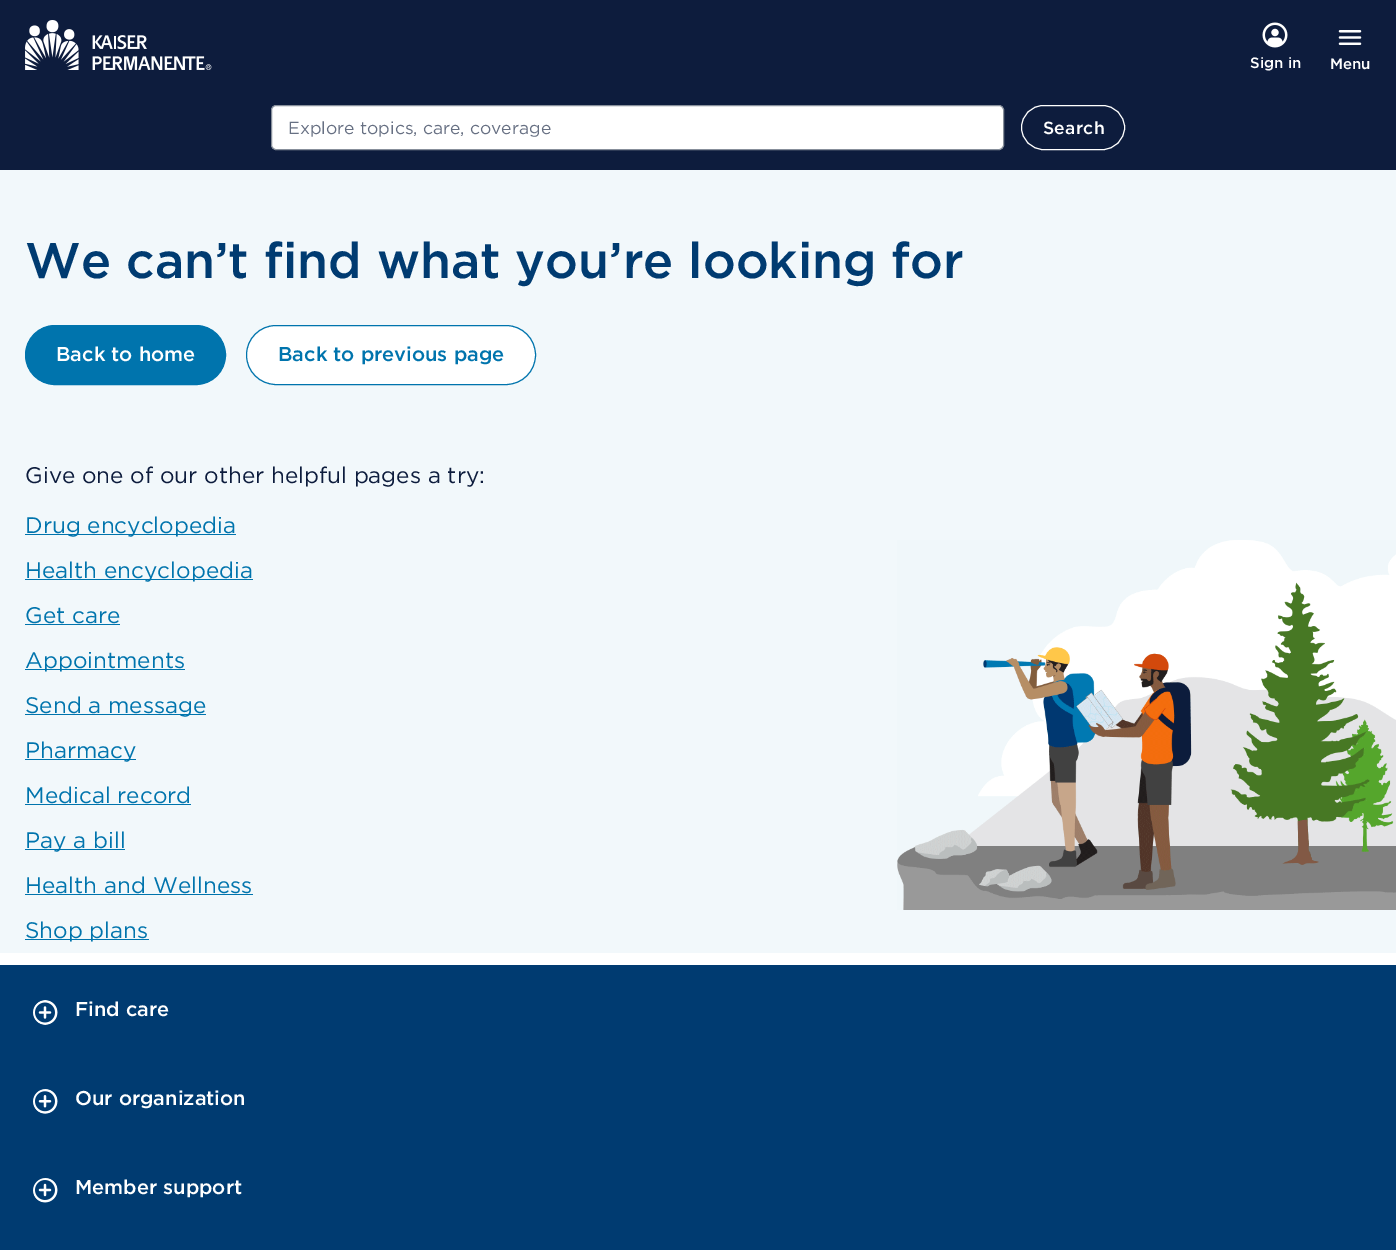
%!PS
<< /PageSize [1396 1250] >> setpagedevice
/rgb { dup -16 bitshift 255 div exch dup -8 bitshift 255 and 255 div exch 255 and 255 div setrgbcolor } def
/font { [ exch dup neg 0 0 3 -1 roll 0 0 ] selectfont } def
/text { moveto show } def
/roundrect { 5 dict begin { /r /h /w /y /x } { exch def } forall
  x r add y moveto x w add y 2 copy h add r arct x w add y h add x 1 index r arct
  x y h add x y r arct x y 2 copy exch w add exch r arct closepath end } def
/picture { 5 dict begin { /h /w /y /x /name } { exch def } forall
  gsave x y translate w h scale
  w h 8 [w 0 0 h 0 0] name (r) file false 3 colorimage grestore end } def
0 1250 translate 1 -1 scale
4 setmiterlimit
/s1 { /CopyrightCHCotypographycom-Light 15 font 16#FFFFFF rgb } def
/s2 { /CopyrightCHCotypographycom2-Light 17.5 font 16#677083 rgb } def
/s3 { /CopyrightCHCotypographycom-Light 50 font 16#003B71 rgb } def
/s4 { /CopyrightCHCotypographycom-Light 20 font 16#FFFFFF rgb } def
/s5 { /CopyrightCHCotypographycom-Light 20 font 16#0074AD rgb } def
/s6 { /CopyrightCHCotypographycom2-Light 22.5 font 16#0D1C3D rgb } def
/s7 { /CopyrightCHCotypographycom2-Light 22.5 font 16#0074AD rgb } def
16#FFFFFF rgb
0 0 1396 1250 rectfill
16#0D1C3D rgb
0 0 1396 170 rectfill
(pic1.raw) 25 20 187 50 picture
(pic2.raw) 1262 22 26 26 picture
s1
(Sign in) 1250 68 text
(pic3.raw) 1338 30 24 15 picture
(Menu) 1330 69 text
271.5 105.5 732 44 4.5 roundrect gsave fill grestore
16#878F9B rgb
stroke
s2
(Explore topics, care, coverage) 288 134 text
16#FFFFFF rgb
1021.5 105.5 103 44 22 roundrect stroke
/CopyrightCHCotypographycom-Light 17.5 font
1043 134 moveto 0.25 0 (Search) ashow
16#F2F8FB rgb
0 170 1396 783 rectfill
s3
(We can’t find what you’re looking for) 25 278 text
16#0074AD rgb
25.5 325.5 200 59 29.5 roundrect gsave fill grestore
stroke
s4
(Back to home) 56 361 text
246.5 325.5 289 59 29.5 roundrect gsave fill grestore
16#0074AD rgb
stroke
(Back to previous page) 278 361 text
s6
(Give one of our other helpful pages a try:) 25 483 text
16#0074AD rgb
25 534 211 1 rectfill
(Drug encyclopedia) 25 533 text
25 579 228 1 rectfill
(Health encyclopedia) 25 578 text
(Get care) 25 623 text
25 624 95 1 rectfill
25 669 160 1 rectfill
(Appointments) 25 668 text
25 714 181 1 rectfill
(Send a message) 25 713 text
25 759 111 1 rectfill
(Pharmacy) 25 758 text
(Medical record) 25 803 text
25 804 166 1 rectfill
25 849 100 1 rectfill
(Pay a bill) 25 848 text
(Health and Wellness) 25 893 text
25 894 228 1 rectfill
25 939 124 1 rectfill
(Shop plans) 25 938 text
(pic4.raw) 897 540 499 370 picture
16#003B71 rgb
0 965 1396 285 rectfill
(pic5.raw) 33 1000 25 25 picture
s4
(Find care) 75 1016 text
(pic6.raw) 33 1089 25 25 picture
(Our organization) 75 1105 text
(pic7.raw) 33 1178 25 25 picture
(Member support) 75 1194 text
showpage
